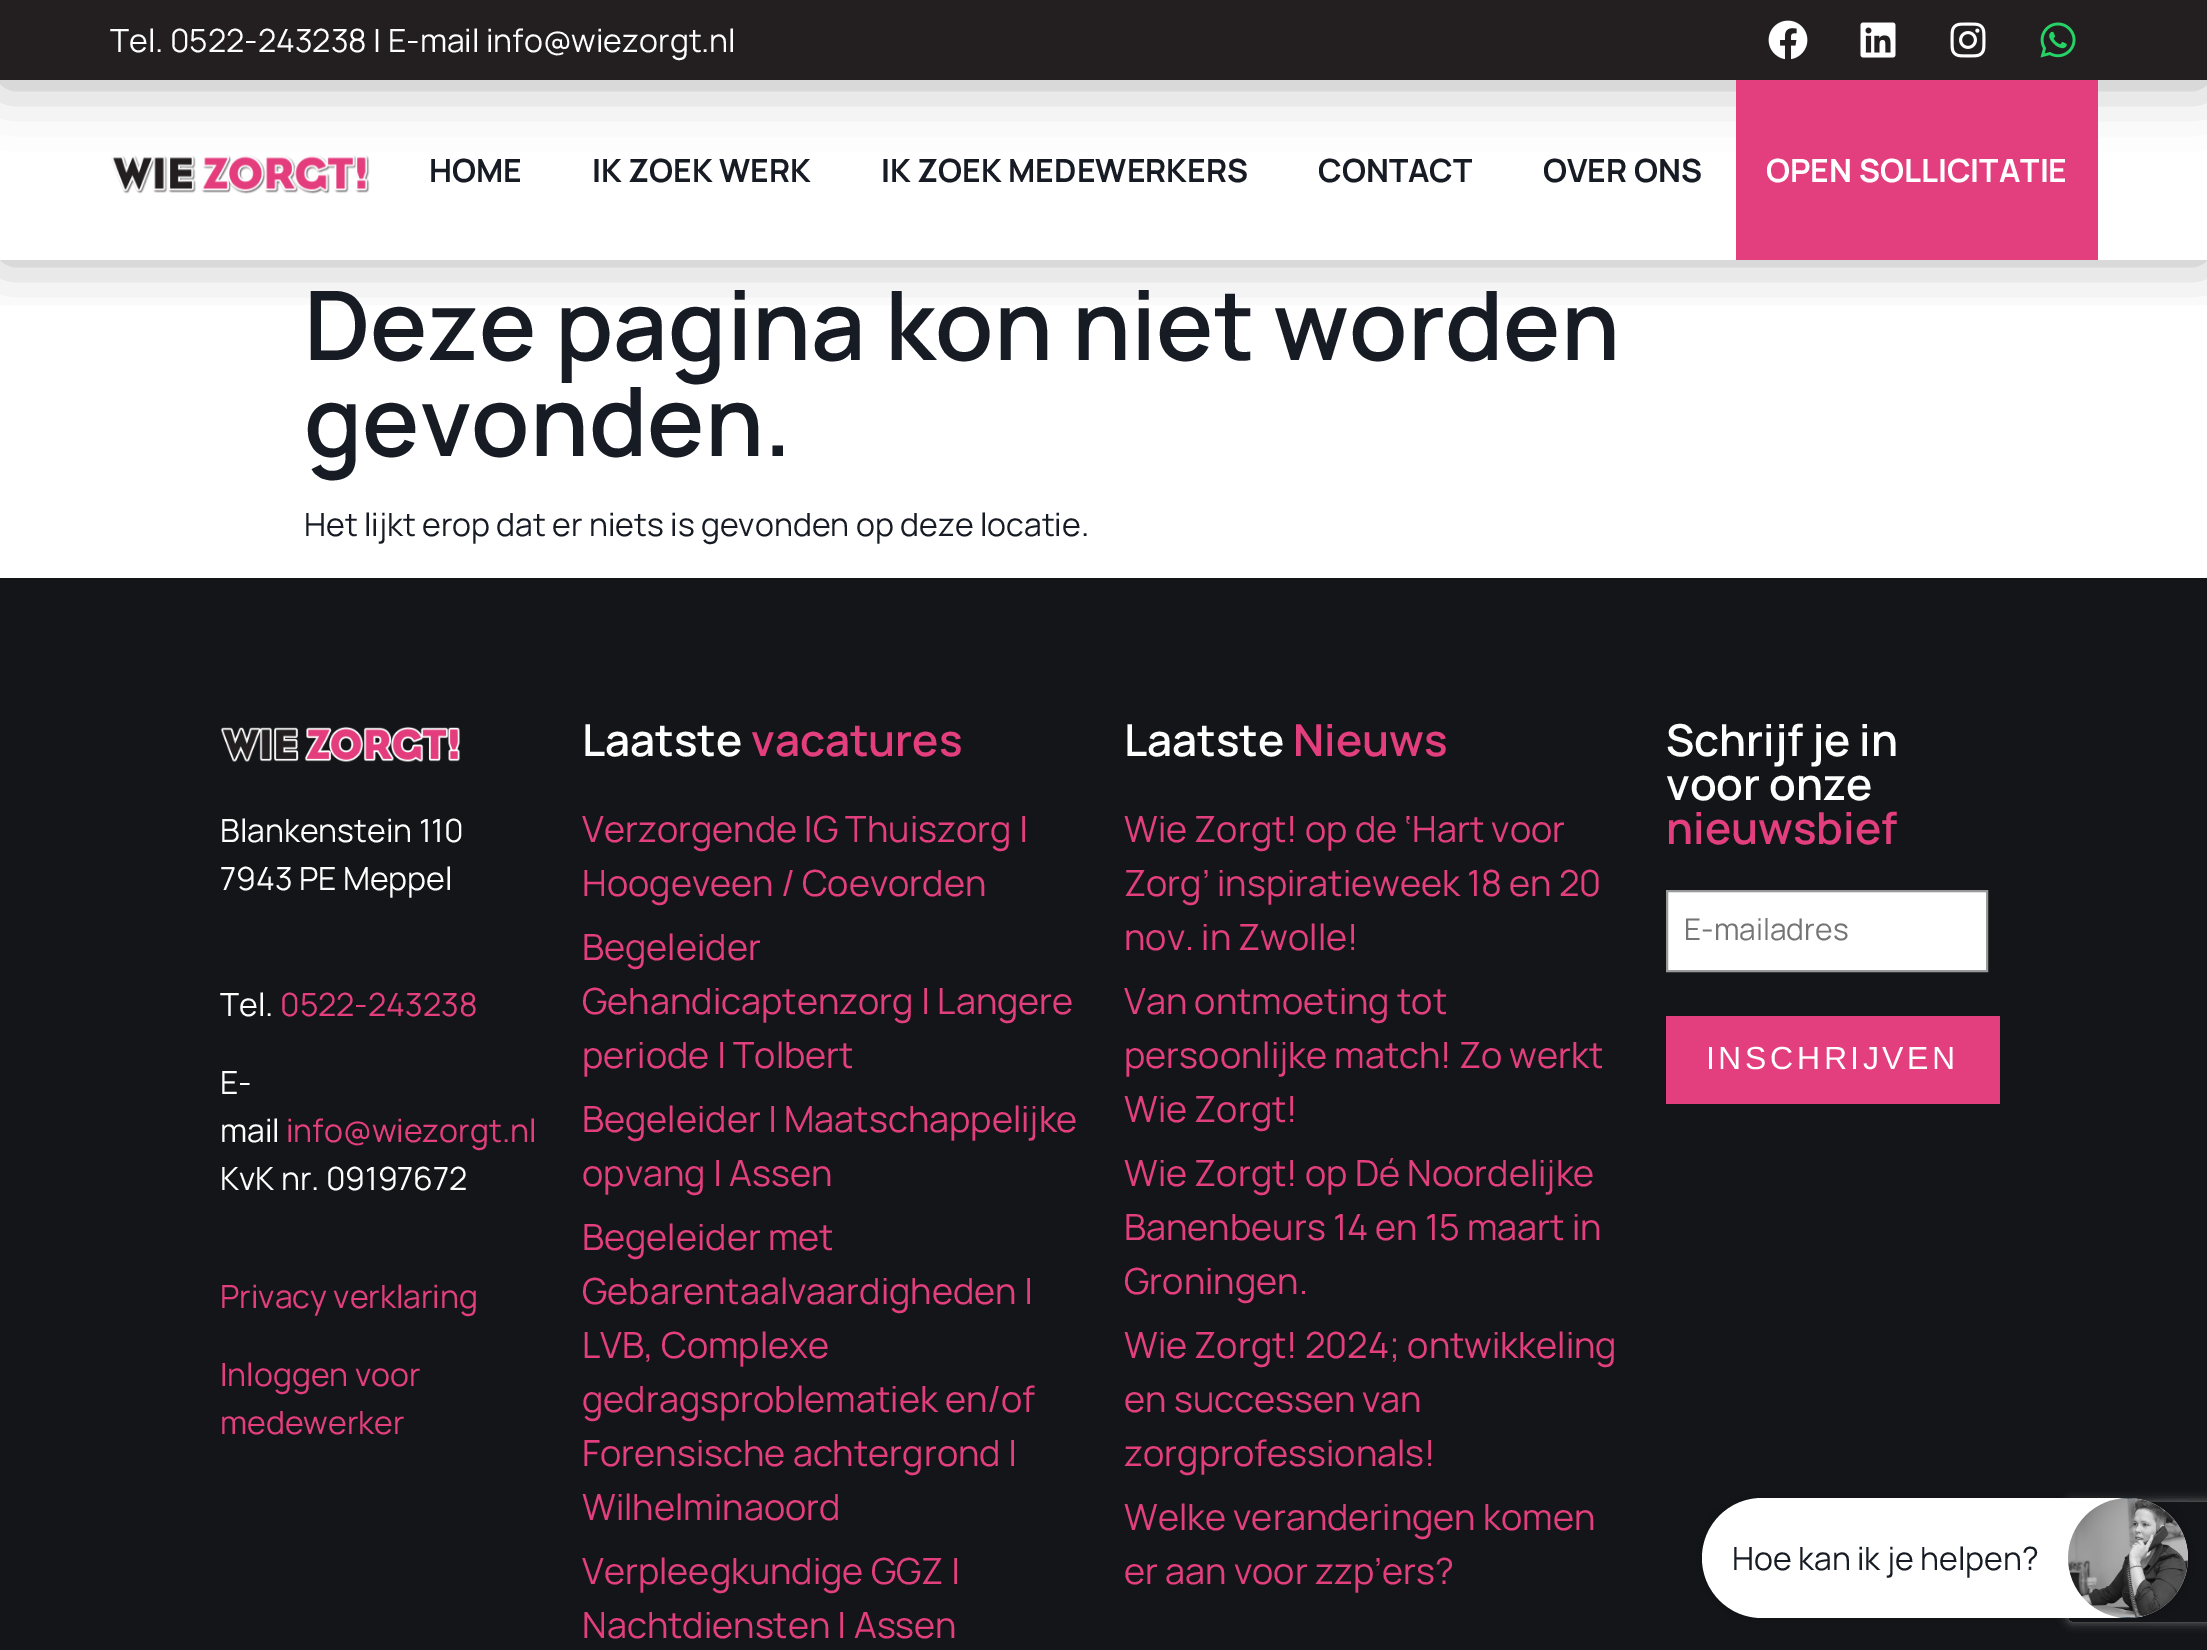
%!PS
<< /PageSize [2207 1650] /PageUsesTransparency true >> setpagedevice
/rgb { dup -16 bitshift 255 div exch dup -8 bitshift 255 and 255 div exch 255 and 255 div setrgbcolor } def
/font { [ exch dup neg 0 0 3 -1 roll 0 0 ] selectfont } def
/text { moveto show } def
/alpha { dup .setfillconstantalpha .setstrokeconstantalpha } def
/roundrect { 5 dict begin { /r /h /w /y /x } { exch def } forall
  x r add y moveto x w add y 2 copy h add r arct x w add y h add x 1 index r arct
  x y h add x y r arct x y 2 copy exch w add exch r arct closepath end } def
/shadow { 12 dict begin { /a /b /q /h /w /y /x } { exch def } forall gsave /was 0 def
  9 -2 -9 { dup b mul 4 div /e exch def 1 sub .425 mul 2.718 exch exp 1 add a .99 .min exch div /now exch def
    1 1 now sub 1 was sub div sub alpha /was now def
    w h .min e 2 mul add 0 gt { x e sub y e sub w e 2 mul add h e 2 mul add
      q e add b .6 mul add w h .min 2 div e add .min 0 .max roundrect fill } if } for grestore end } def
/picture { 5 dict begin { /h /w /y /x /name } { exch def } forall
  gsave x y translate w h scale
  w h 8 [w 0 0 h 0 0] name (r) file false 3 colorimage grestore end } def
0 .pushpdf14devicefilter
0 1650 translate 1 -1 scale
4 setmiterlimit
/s1 { /Manrope-Regular 32 font 16#FFFFFF rgb } def
/s2 { /Manrope-Bold 32 font 16#171B24 rgb } def
/s3 { /Manrope-Bold 32 font 16#FFFFFF rgb } def
/s4 { /Manrope-SemiBold 96 font 16#171B24 rgb } def
/s5 { /Manrope-Regular 32 font 16#171B24 rgb } def
/s6 { /Manrope-Regular 32 font 16#E33E7E rgb } def
/s7 { /Manrope-SemiBold 44 font 16#FFFFFF rgb } def
/s8 { /Manrope-SemiBold 44 font 16#E33E7E rgb } def
/s9 { /Manrope-Regular 36 font 16#E33E7E rgb } def
/s10 { /Manrope-Regular 30 font 16#757575 rgb } def
16#FFFFFF rgb
0 0 2207 1650 rectfill
gsave
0 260 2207 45 rectclip
16#000000 rgb
0 80 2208 180 0 30 0.3 shadow
grestore
(pic5.raw) 111 155 259 39 picture
16#000000 rgb
0 4 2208 80 0 30 0.3 shadow
16#231F20 rgb
0 0 2207 80 rectfill
s1
(Tel. 0522-243238 | E-mail info@wiezorgt.nl) 110 52 text
(pic1.raw) 1768 20 40 40 picture
(pic2.raw) 1860 22 36 36 picture
(pic3.raw) 1950 22 36 36 picture
(pic4.raw) 2040 22 36 36 picture
s2
(HOME) 429 182 text
(IK ZOEK WERK) 592 182 text
(IK ZOEK MEDEWERKERS) 881 182 text
(CONTACT) 1318 182 text
(OVER ONS) 1543 182 text
16#E33E7E rgb
1736 80 362 180 rectfill
s3
(OPEN SOLLICITATIE) 1766 182 text
s4
(Deze pagina kon niet worden) 304 360 text
(gevonden.) 304 456 text
s5
(Het lijkt erop dat er niets is gevonden op deze locatie.) 304 536 text
16#141519 rgb
0 578 2207 1072 rectfill
(pic6.raw) 220 726 241 37 picture
s1
(Blankenstein 110) 220 842 text
(7943 PE Meppel) 220 890 text
(Tel.) 220 1016 text
s6
(0522-243238) 280 1016 text
s1
(E-) 220 1094 text
(mail) 220 1142 text
s6
(info@wiezorgt.nl) 286 1142 text
s1
(KvK nr. 09197672) 220 1190 text
s6
(Privacy verklaring) 220 1308 text
(Inloggen voor) 220 1386 text
(medewerker) 220 1434 text
s7
(Laatste) 582 756 text
s8
(vacatures) 751 756 text
s9
(Verzorgende IG Thuiszorg |) 582 842 text
(Hoogeveen / Coevorden) 582 896 text
(Begeleider) 582 960 text
(Gehandicaptenzorg | Langere) 582 1014 text
(periode | Tolbert) 582 1068 text
(Begeleider | Maatschappelijke) 582 1132 text
(opvang | Assen) 582 1186 text
(Begeleider met) 582 1250 text
(Gebarentaalvaardigheden |) 582 1304 text
(LVB, Complexe) 582 1358 text
(gedragsproblematiek en/of) 582 1412 text
(Forensische achtergrond |) 582 1466 text
(Wilhelminaoord) 582 1520 text
(Verpleegkundige GGZ |) 582 1584 text
(Nachtdiensten | Assen) 582 1638 text
s7
(Laatste) 1124 756 text
s8
(Nieuws) 1293 756 text
s9
(Wie Zorgt! op de ‘Hart voor) 1124 842 text
(Zorg’ inspiratieweek 18 en 20) 1124 896 text
(nov. in Zwolle!) 1124 950 text
(Van ontmoeting tot) 1124 1014 text
(persoonlijke match! Zo werkt) 1124 1068 text
(Wie Zorgt!) 1124 1122 text
(Wie Zorgt! op Dé Noordelijke) 1124 1186 text
(Banenbeurs 14 en 15 maart in) 1124 1240 text
(Groningen.) 1124 1294 text
(Wie Zorgt! 2024; ontwikkeling) 1124 1358 text
(en successen van) 1124 1412 text
(zorgprofessionals!) 1124 1466 text
(Welke veranderingen komen) 1124 1530 text
(er aan voor zzp’ers?) 1124 1584 text
s7
(Schrijf je in) 1666 756 text
(voor onze) 1666 800 text
s8
(nieuwsbief) 1666 844 text
16#FFFFFF rgb
1667 891 moveto 1987 891 lineto 1987 971 lineto 1667 971 lineto closepath gsave fill grestore
16#999999 rgb
2 setlinewidth
stroke
s10
(E-mailadres) 1684 940 text
16#E33E7E rgb
1666 1016 334 88 rectfill
/LiberationSans-Regular 32 font
16#FFFFFF rgb
1706 1069 moveto 3.6 0 (INSCHRIJVEN) ashow
gsave
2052 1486 moveto 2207 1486 lineto 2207 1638 lineto 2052 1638 lineto closepath 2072 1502 moveto 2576 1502 lineto 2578 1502 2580 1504 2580 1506 curveto 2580 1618 lineto 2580 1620 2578 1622 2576 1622 curveto 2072 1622 lineto 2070 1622 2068 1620 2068 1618 curveto 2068 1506 lineto 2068 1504 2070 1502 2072 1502 curveto closepath eoclip newpath
16#808080 rgb
2068 1502 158 120 4 5 1 shadow
grestore
16#000000 rgb
1702 1498 486 120 60 10 0.2 shadow
16#FFFFFF rgb
1702 1498 486 120 60 roundrect fill
s5
(Hoe kan ik je helpen?) 1732 1570 text
(pic7.raw) 2068 1498 120 120 picture
.poppdf14devicefilter showpage
